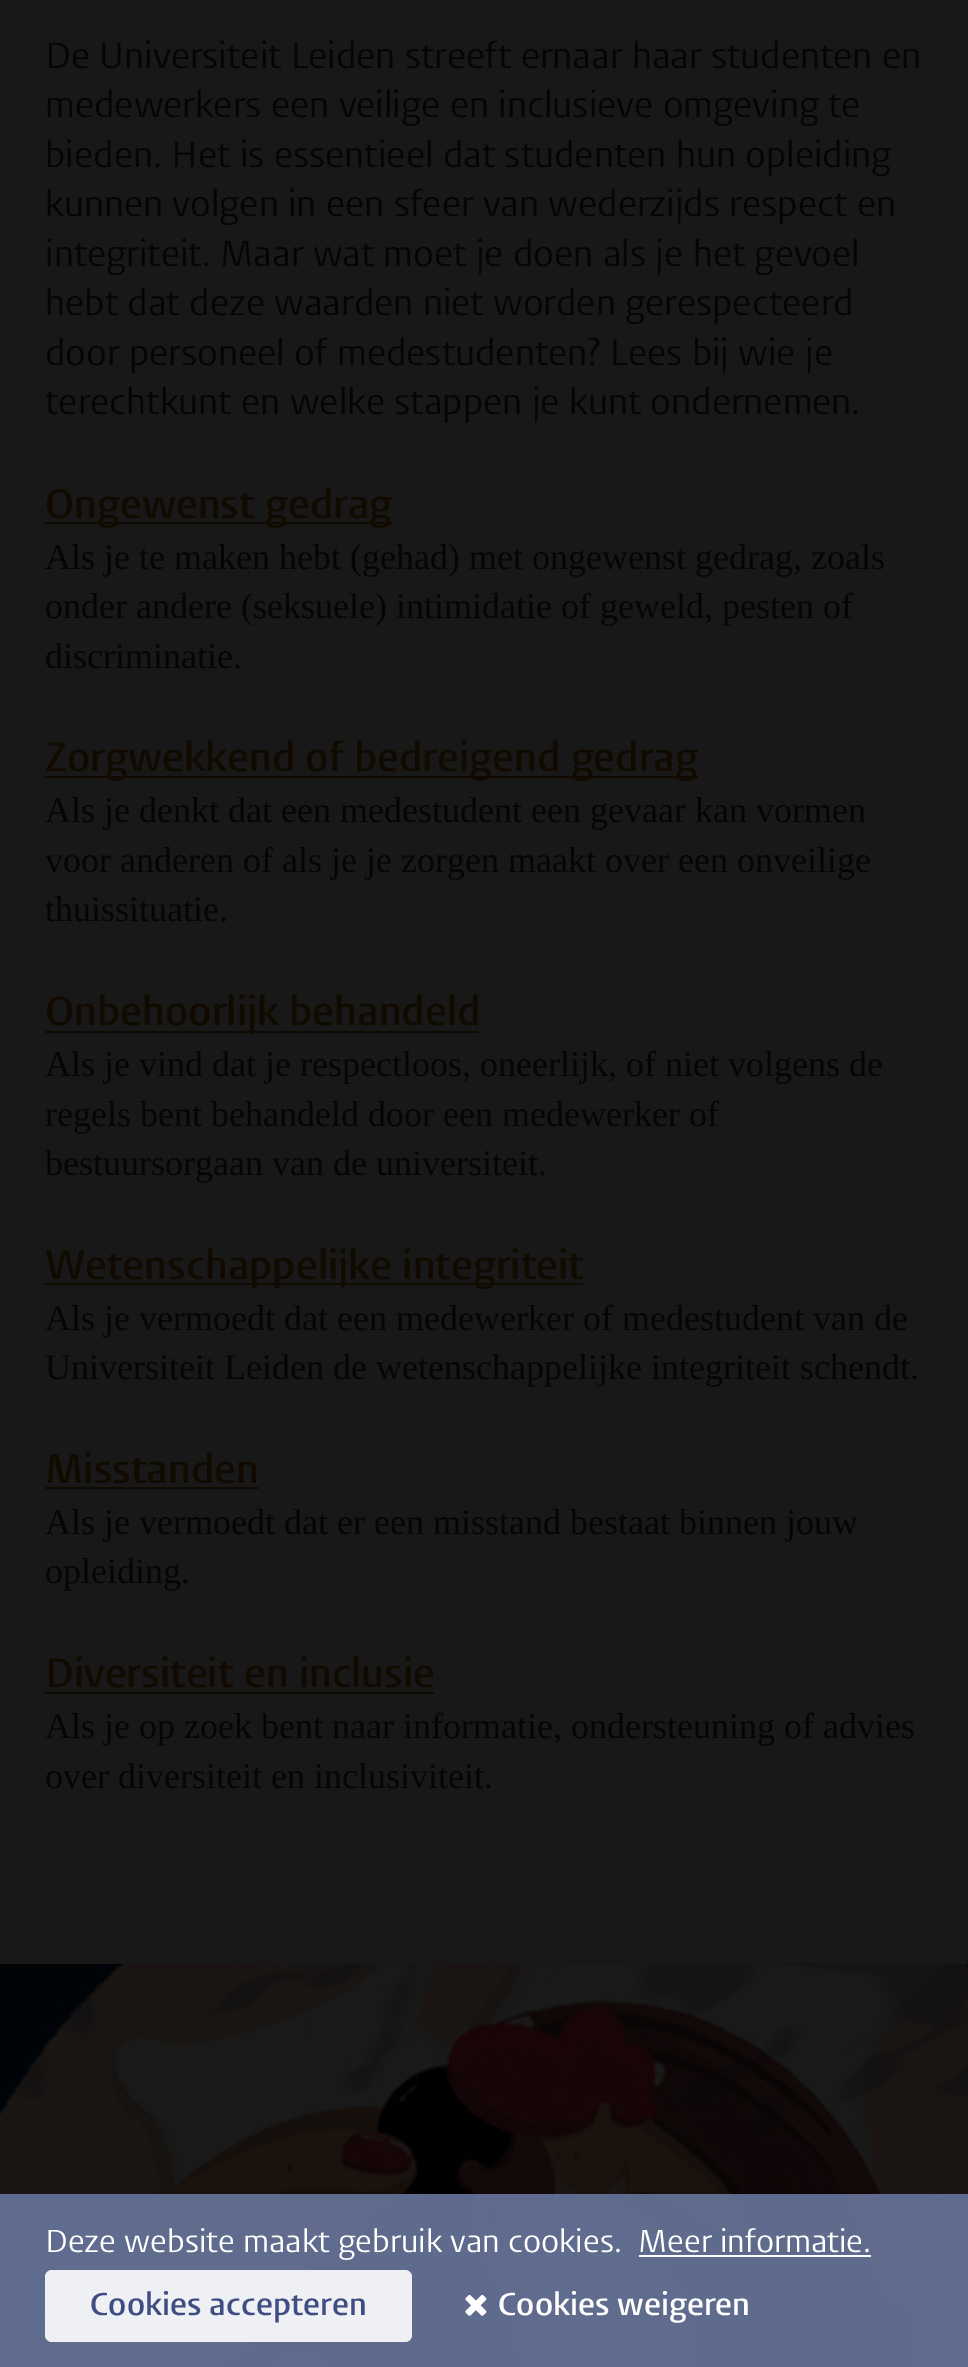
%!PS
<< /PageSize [968 2367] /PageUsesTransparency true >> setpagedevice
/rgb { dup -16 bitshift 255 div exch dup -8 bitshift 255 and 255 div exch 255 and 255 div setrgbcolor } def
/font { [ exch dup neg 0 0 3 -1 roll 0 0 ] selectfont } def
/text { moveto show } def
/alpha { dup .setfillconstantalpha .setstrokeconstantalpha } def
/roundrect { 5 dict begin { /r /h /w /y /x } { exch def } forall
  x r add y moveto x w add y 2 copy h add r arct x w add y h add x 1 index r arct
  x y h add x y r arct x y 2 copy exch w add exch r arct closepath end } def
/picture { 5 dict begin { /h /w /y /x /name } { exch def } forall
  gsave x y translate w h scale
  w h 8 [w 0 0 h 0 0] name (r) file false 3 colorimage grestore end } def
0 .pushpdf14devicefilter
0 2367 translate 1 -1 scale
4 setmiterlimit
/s1 { /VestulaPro-Regular 36 font 16#050505 rgb } def
/s2 { /VestulaPro-SemiBold 40.5 font 16#110A00 rgb } def
/s3 { /LiberationSerif-Regular 36 font 16#050505 rgb } def
/s4 { /VestulaPro-Regular 31.5 font 16#FFFFFF rgb } def
/s5 { /VestulaPro-SemiBold 31.5 font 16#404D82 rgb } def
/s6 { /VestulaPro-SemiBold 31.5 font 16#FFFFFF rgb } def
16#181818 rgb
0 0 968 2367 rectfill
s1
(De Universiteit Leiden streeft ernaar haar studenten en) 45 68 text
(medewerkers een veilige en inclusieve omgeving te) 45 117 text
(bieden. Het is essentieel dat studenten hun opleiding) 45 167 text
(kunnen volgen in een sfeer van wederzijds respect en) 45 216 text
(integriteit. Maar wat moet je doen als je het gevoel) 45 266 text
(hebt dat deze waarden niet worden gerespecteerd) 45 315 text
(door personeel of medestudenten? Lees bij wie je) 45 365 text
(terechtkunt en welke stappen je kunt ondernemen.) 45 414 text
16#110A00 rgb
45 522 347 2 rectfill
s2
(Ongewenst gedrag) 45 518 text
s3
(Als je te maken hebt \(gehad\) met ongewenst gedrag, zoals) 45 569 text
(onder andere \(seksuele\) intimidatie of geweld, pesten of) 45 618 text
(discriminatie.) 45 668 text
16#110A00 rgb
45 776 653 2 rectfill
s2
(Zorgwekkend of bedreigend gedrag) 45 771 text
s3
(Als je denkt dat een medestudent een gevaar kan vormen) 45 822 text
(voor anderen of als je je zorgen maakt over een onveilige) 45 872 text
(thuissituatie.) 45 921 text
16#110A00 rgb
45 1031 434 2 rectfill
s2
(Onbehoorlijk behandeld) 45 1025 text
s3
(Als je vind dat je respectloos, oneerlijk, of niet volgens de) 45 1076 text
(regels bent behandeld door een medewerker of) 45 1126 text
(bestuursorgaan van de universiteit.) 45 1175 text
16#110A00 rgb
45 1283 538 2 rectfill
s2
(Wetenschappelijke integriteit) 45 1279 text
s3
(Als je vermoedt dat een medewerker of medestudent van de) 45 1330 text
(Universiteit Leiden de wetenschappelijke integriteit schendt.) 45 1379 text
s2
(Misstanden) 45 1483 text
45 1487 214 2 rectfill
s3
(Als je vermoedt dat er een misstand bestaat binnen jouw) 45 1534 text
(opleiding.) 45 1583 text
s2
(Diversiteit en inclusie) 45 1687 text
45 1692 389 2 rectfill
s3
(Als je op zoek bent naar informatie, ondersteuning of advies) 45 1738 text
(over diversiteit en inclusiviteit.) 45 1788 text
(pic1.raw) 0 1963 968 404 picture
0.9 alpha
16#68769C rgb
0 2194 968 173 rectfill
1 alpha
s4
(Deze website maakt gebruik van cookies.) 45 2252 text
(Meer informatie.) 638 2252 text
639 2255 232 2 rectfill
16#EFF0F4 rgb
45 2270 367 72 7 roundrect fill
s5
(Cookies accepteren) 90 2315 text
(pic2.raw) 465 2294 22 22 picture
s6
(Cookies weigeren) 498 2315 text
.poppdf14devicefilter showpage
